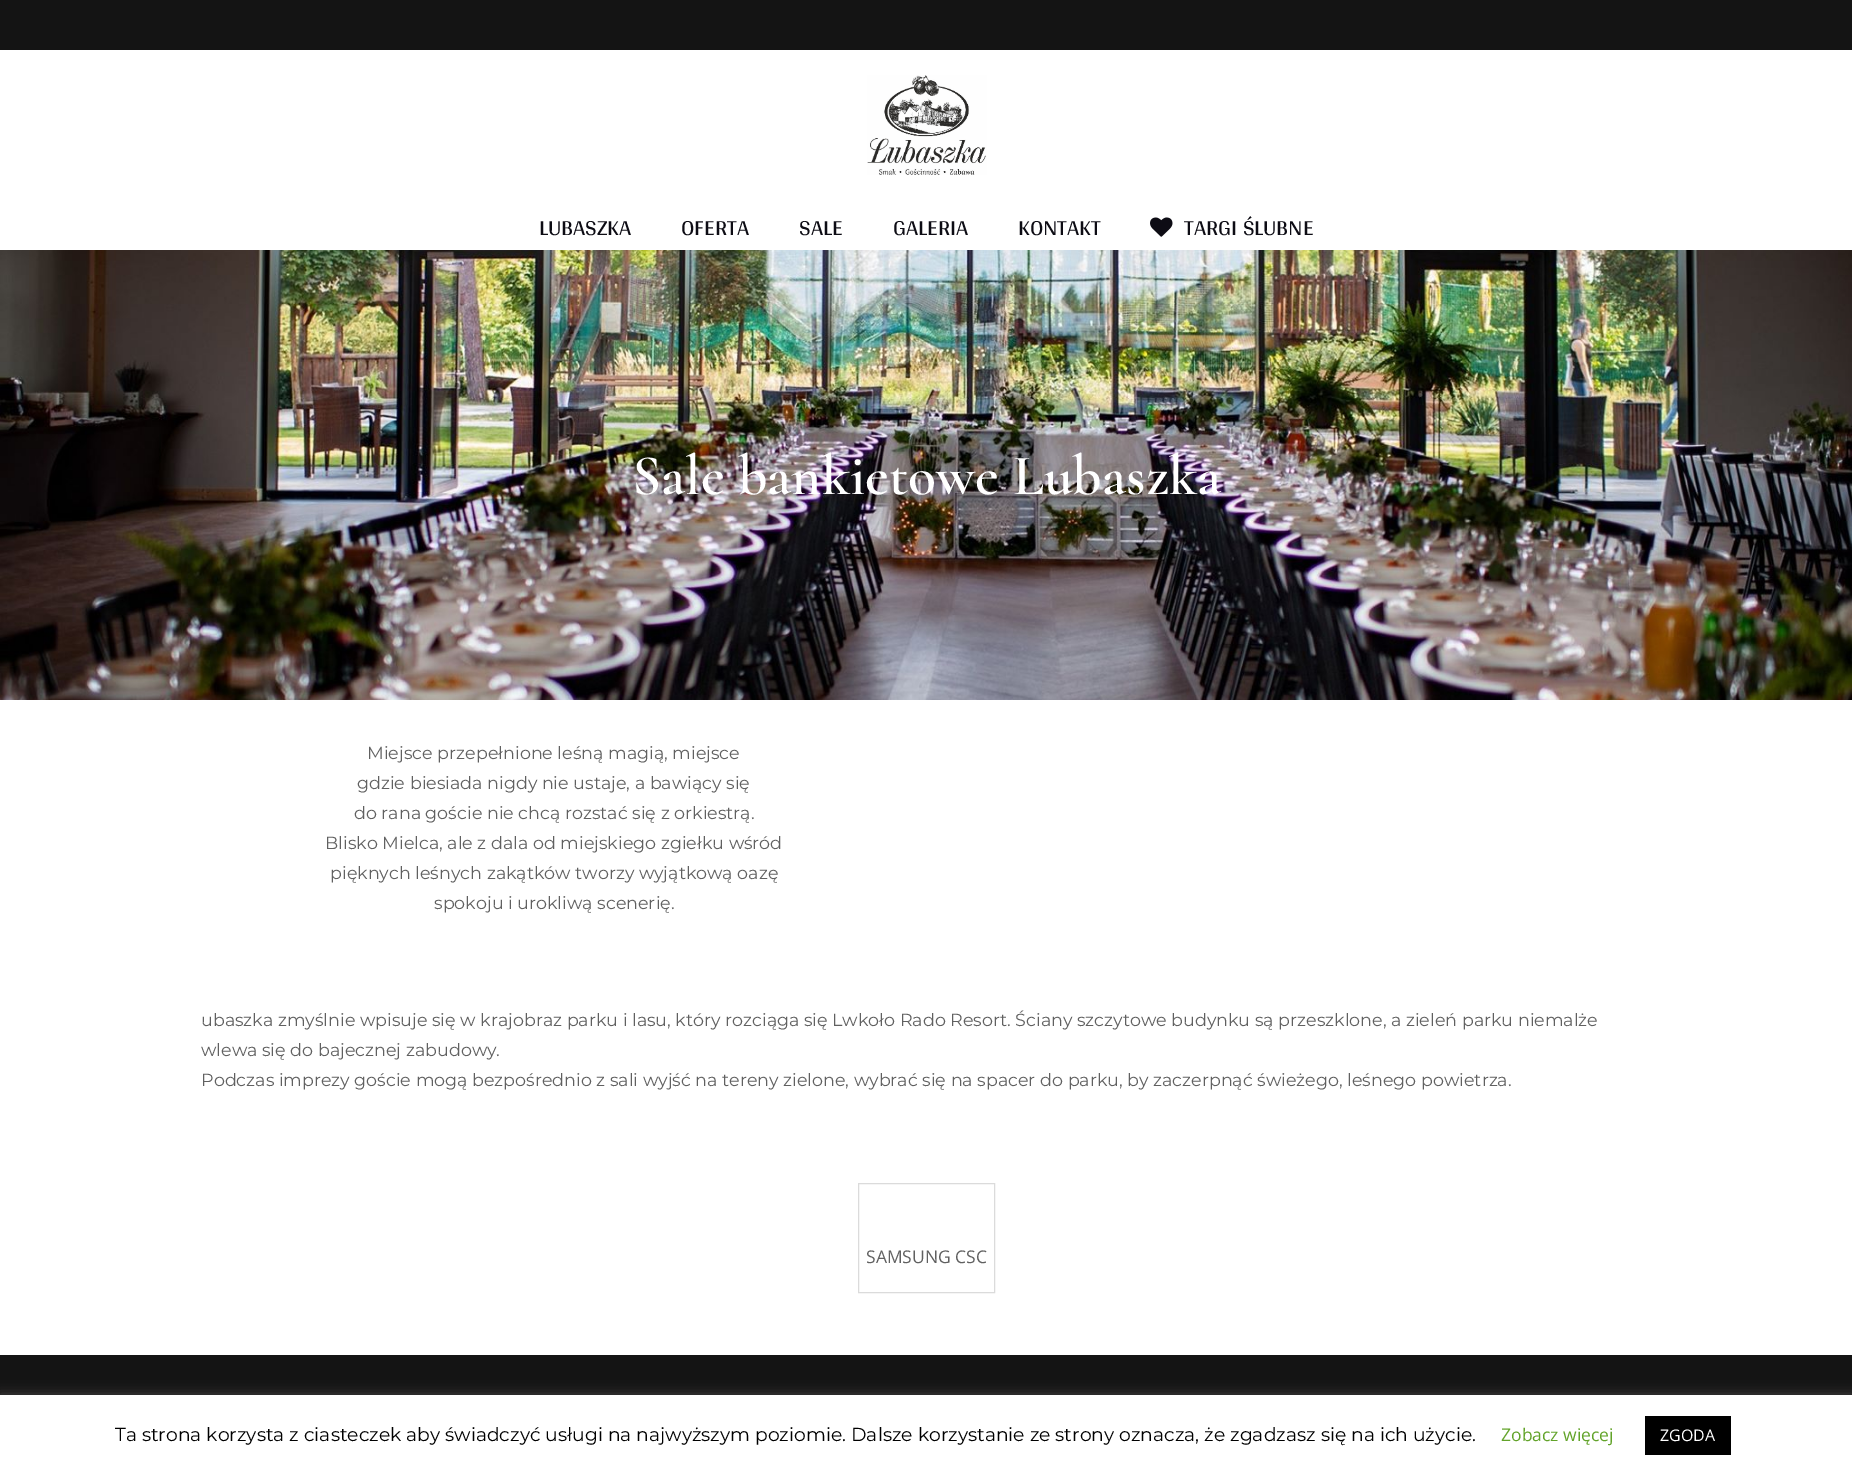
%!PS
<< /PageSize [1852 1476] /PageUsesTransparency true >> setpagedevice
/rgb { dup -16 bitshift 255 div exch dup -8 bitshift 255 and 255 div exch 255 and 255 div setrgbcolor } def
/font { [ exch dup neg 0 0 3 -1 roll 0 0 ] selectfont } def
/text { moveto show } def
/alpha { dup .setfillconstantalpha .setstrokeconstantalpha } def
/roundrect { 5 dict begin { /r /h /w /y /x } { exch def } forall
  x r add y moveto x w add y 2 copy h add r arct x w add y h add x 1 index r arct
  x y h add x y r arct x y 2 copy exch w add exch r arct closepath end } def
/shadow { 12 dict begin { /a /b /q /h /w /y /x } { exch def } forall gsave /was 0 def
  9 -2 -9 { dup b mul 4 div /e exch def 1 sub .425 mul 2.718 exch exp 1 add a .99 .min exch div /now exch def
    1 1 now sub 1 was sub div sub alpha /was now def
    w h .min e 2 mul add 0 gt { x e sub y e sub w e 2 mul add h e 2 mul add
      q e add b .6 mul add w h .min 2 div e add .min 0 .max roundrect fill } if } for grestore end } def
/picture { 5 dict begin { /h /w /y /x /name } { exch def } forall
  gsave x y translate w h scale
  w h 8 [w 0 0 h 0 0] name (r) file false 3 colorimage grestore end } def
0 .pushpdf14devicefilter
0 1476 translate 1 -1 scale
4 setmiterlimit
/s1 { /Arya-Regular 22.5 font 16#0D0C14 rgb } def
/s2 { /Cormorant-SemiBold 57.5 font 16#FFFFFF rgb } def
/s3 { /Montserrat-Regular 17.5 font 16#606060 rgb } def
/s4 { /OpenSans-Regular 17.5 font 16#606060 rgb } def
/s5 { /Montserrat-Regular 18.75 font 16#000000 rgb } def
/s6 { /OpenSans-Regular 17.5 font 16#62A329 rgb } def
/s7 { /OpenSans-Regular 16 font 16#FFFFFF rgb } def
16#FFFFFF rgb
0 0 1852 1476 rectfill
16#141414 rgb
0 0 1852 50 rectfill
(pic1.raw) 867 75 120 100 picture
s1
(LUBASZKA) 539 235 text
(OFERTA) 681 235 text
(SALE) 799 235 text
(GALERIA) 893 235 text
(KONTAKT) 1018 235 text
(pic2.raw) 1150 217 23 20 picture
(TARGI ŚLUBNE) 1184 235 text
(pic3.raw) 0 250 1852 450 picture
s2
(Sale bankietowe Lubaszka) 632 494 text
s3
(Miejsce przepełnione leśną magią, miejsce) 367 759 text
(gdzie biesiada nigdy nie ustaje, a bawiący się) 357 789 text
(do rana goście nie chcą rozstać się z orkiestrą.) 354 819 text
(Blisko Mielca, ale z dala od miejskiego zgiełku wśród) 325 849 text
(pięknych leśnych zakątków tworzy wyjątkową oazę) 330 879 text
(spokoju i urokliwą scenerię.) 434 909 text
(ubaszka zmyślnie wpisuje się w krajobraz parku i lasu, który rozciąga się Lwkoło Rado Resort. Ściany szczytowe budynku są przeszklone, a zieleń parku niemalże) 201 1026 text
(wlewa się do bajecznej zabudowy.) 201 1056 text
(Podczas imprezy goście mogą bezpośrednio z sali wyjść na tereny zielone, wybrać się na spacer do parku, by zaczerpnąć świeżego, leśnego powietrza.) 201 1086 text
16#DBDBDB rgb
858.5 1183.5 136 109 rectstroke
s4
(SAMSUNG CSC) 866 1263 text
16#141414 rgb
0 1355 1852 40 rectfill
16#ACABAB rgb
0 1394 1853 81 0 6 0.3 shadow
16#FFFFFF rgb
0 1395 1852 81 rectfill
s5
(Ta strona korzysta z ciasteczek aby świadczyć usługi na najwyższym poziomie. Dalsze korzystanie ze strony oznacza, że zgadzasz się na ich użycie.) 115 1441 text
s6
(Zobacz więcej) 1501 1441 text
16#000000 rgb
1645 1416 86 39 rectfill
s7
(ZGODA) 1660 1441 text
.poppdf14devicefilter showpage
